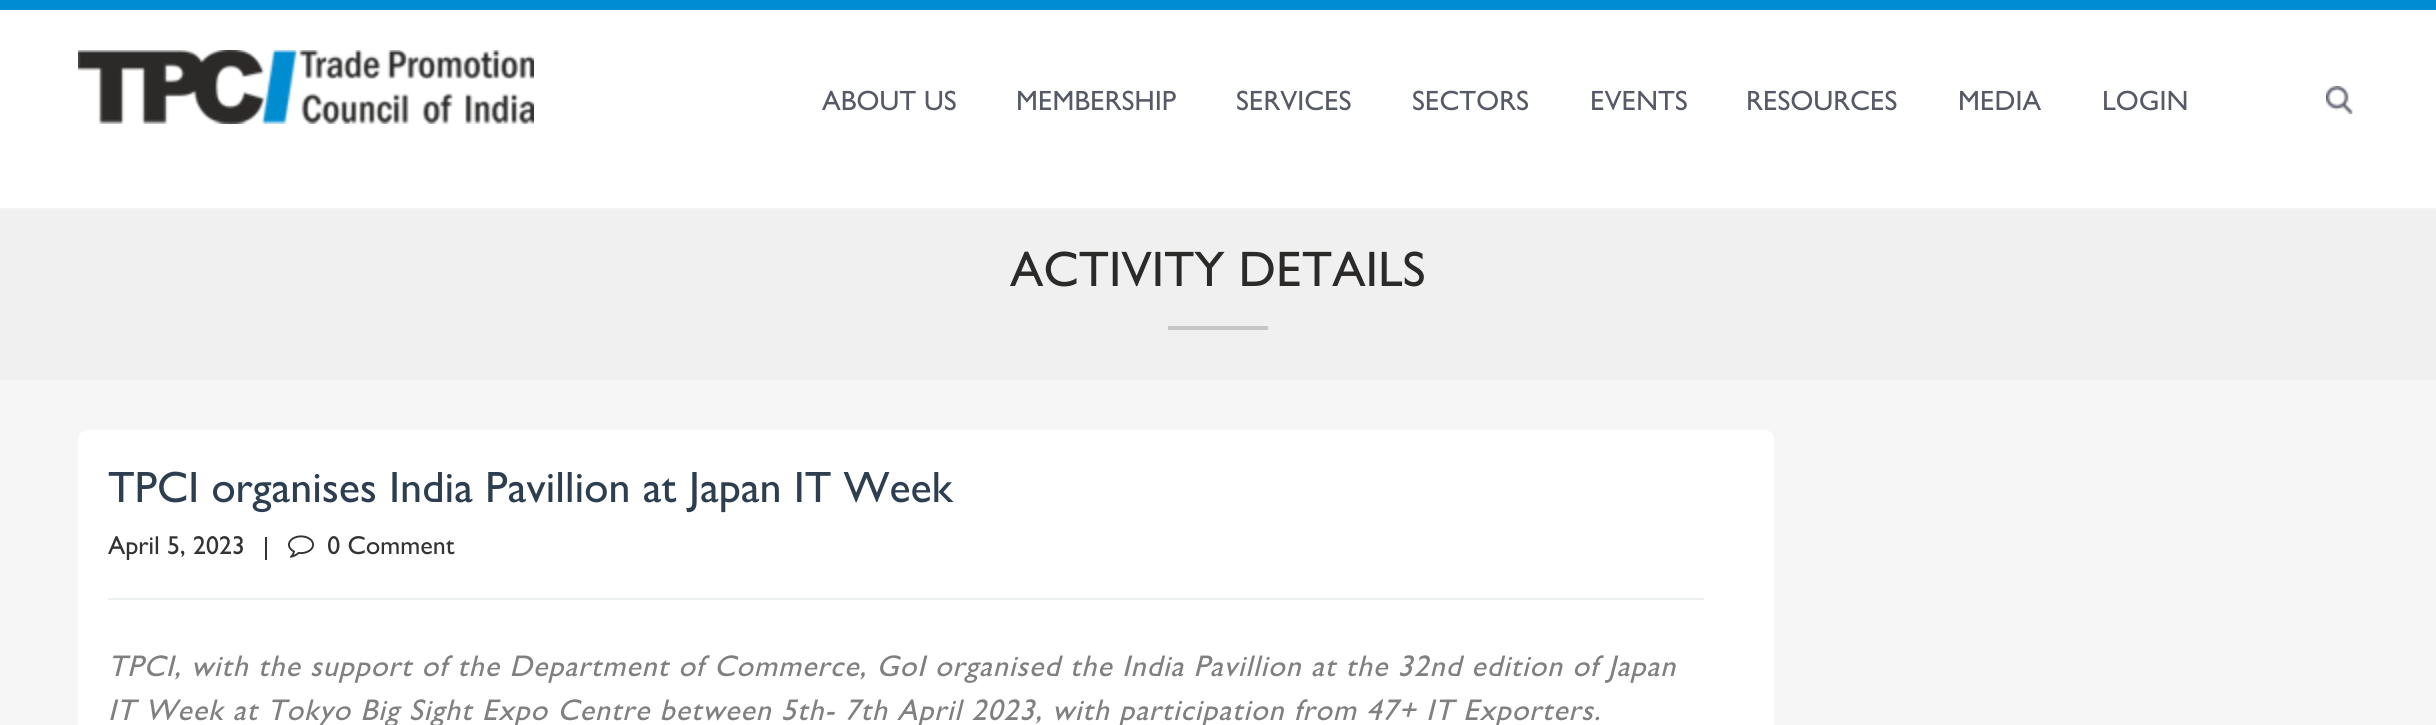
%!PS
<< /PageSize [2436 725] >> setpagedevice
/rgb { dup -16 bitshift 255 div exch dup -8 bitshift 255 and 255 div exch 255 and 255 div setrgbcolor } def
/roundrect { 5 dict begin { /r /h /w /y /x } { exch def } forall
  x r add y moveto x w add y 2 copy h add r arct x w add y h add x 1 index r arct
  x y h add x y r arct x y 2 copy exch w add exch r arct closepath end } def
/picture { 5 dict begin { /h /w /y /x /name } { exch def } forall
  gsave x y translate w h scale
  w h 8 [w 0 0 h 0 0] name (r) file false 3 colorimage grestore end } def
0 725 translate 1 -1 scale
4 setmiterlimit
16#FFFFFF rgb
0 0 2436 725 rectfill
16#008CD1 rgb
0 0 2436 10 rectfill
16#F2F2F2 rgb
0 208 2436 2 rectfill
(pic1.raw) 78 50 456 74 picture
(pic2.raw) 822 90 134 21 picture
(pic3.raw) 1018 90 158 21 picture
(pic4.raw) 1237 90 114 21 picture
(pic5.raw) 1413 90 115 21 picture
(pic6.raw) 1592 90 95 21 picture
(pic7.raw) 1748 90 149 21 picture
(pic8.raw) 1960 90 81 20 picture
(pic9.raw) 2104 90 83 21 picture
(pic10.raw) 2326 86 27 28 picture
16#F0F0F0 rgb
0 210 2436 170 rectfill
(pic11.raw) 1010 251 414 36 picture
16#C5C5C5 rgb
1168 326 100 4 rectfill
16#F6F6F6 rgb
0 380 2436 345 rectfill
16#FFFFFF rgb
78 430 1696 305 10 roundrect fill
(pic12.raw) 108 471 846 42 picture
(pic13.raw) 108 536 135 24 picture
16#333333 rgb
265 537 2 23 rectfill
(pic14.raw) 288 535 26 23 picture
(pic15.raw) 328 536 127 19 picture
16#ECF0F1 rgb
108 598 1596 2 rectfill
(pic16.raw) 113 655 1563 28 picture
(pic17.raw) 110 699 1490 26 picture
showpage
